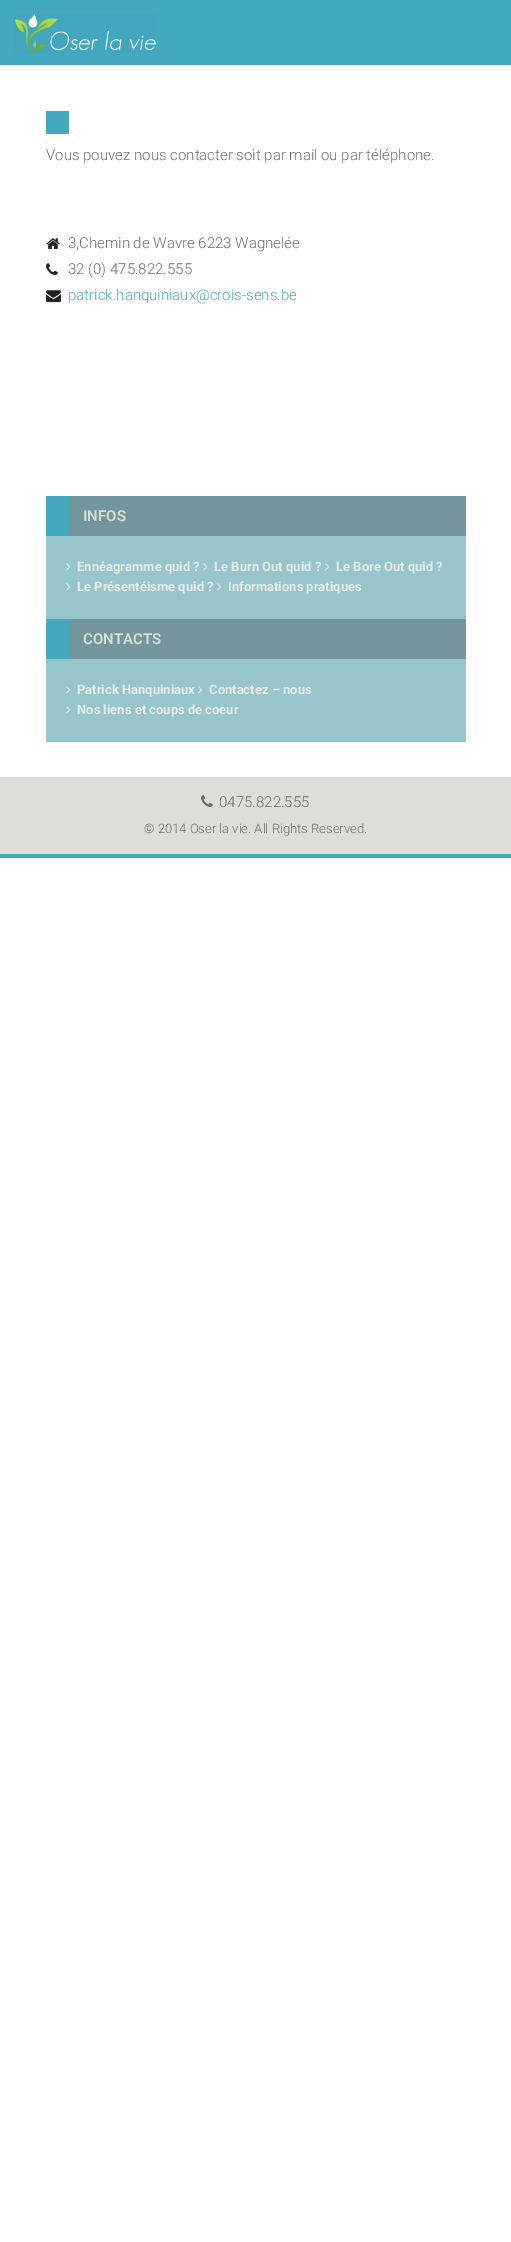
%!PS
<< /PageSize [511 2242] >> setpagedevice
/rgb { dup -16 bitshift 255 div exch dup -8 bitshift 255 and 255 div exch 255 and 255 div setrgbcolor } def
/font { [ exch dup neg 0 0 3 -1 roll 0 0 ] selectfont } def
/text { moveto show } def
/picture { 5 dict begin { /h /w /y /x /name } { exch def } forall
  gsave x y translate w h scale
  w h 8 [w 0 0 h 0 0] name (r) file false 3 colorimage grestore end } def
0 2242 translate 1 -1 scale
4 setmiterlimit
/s1 { /Roboto-Light 15 font 16#6A6C6F rgb } def
/s2 { /Roboto-Light 15 font 16#43A9BF rgb } def
/s3 { /Roboto-SemiBold 15 font 16#DBDFD8 rgb } def
/s4 { /Roboto-Bold 13 font 16#E9ECE6 rgb } def
/s5 { /Roboto-Light 13 font 16#6A6C6F rgb } def
16#FFFFFF rgb
0 0 511 2242 rectfill
16#43A9BF rgb
0 0 511 65 rectfill
(pic1.raw) 14 14 142 39 picture
46 111 23 23 rectfill
s1
(Vous pouvez nous contacter soit par mail ou par téléphone.) 46 160 text
(pic2.raw) 46 238 14 11 picture
(3,Chemin de Wavre 6223 Wagnelée) 68 248 text
(pic3.raw) 46 263 12 12 picture
(32 \(0\) 475.822.555) 68 274 text
(pic4.raw) 46 290 15 13 picture
s2
(patrick.hanquiniaux@crois-sens.be) 68 300 text
16#97C5CC rgb
46 536 420 206 rectfill
16#73969C rgb
69 496 397 40 rectfill
16#43A9BF rgb
46 496 23 40 rectfill
s3
(INFOS) 83 521 text
(pic5.raw) 66 563 5 8 picture
s4
(Ennéagramme quid ?) 77 571 text
(pic5.raw) 203 563 5 8 picture
(Le Burn Out quid ?) 214 571 text
(pic5.raw) 325 563 5 8 picture
(Le Bore Out quid ?) 336 571 text
(pic5.raw) 66 583 5 8 picture
(Le Présentéisme quid ?) 77 591 text
(pic5.raw) 217 583 5 8 picture
(Informations pratiques) 228 591 text
16#73969C rgb
69 619 397 40 rectfill
16#43A9BF rgb
46 619 23 40 rectfill
s3
(CONTACTS) 83 644 text
(pic5.raw) 66 686 5 8 picture
s4
(Patrick Hanquiniaux) 77 694 text
(pic5.raw) 198 686 5 8 picture
(Contactez – nous) 209 694 text
(pic5.raw) 66 706 5 8 picture
(Nos liens et coups de coeur) 77 714 text
16#DBDFD8 rgb
0 777 511 77 rectfill
16#43A9BF rgb
0 854 511 4 rectfill
(pic6.raw) 201 795 12 12 picture
s1
(0475.822.555) 219 807 text
s5
(© 2014 Oser la vie. All Rights Reserved.) 144 833 text
showpage
